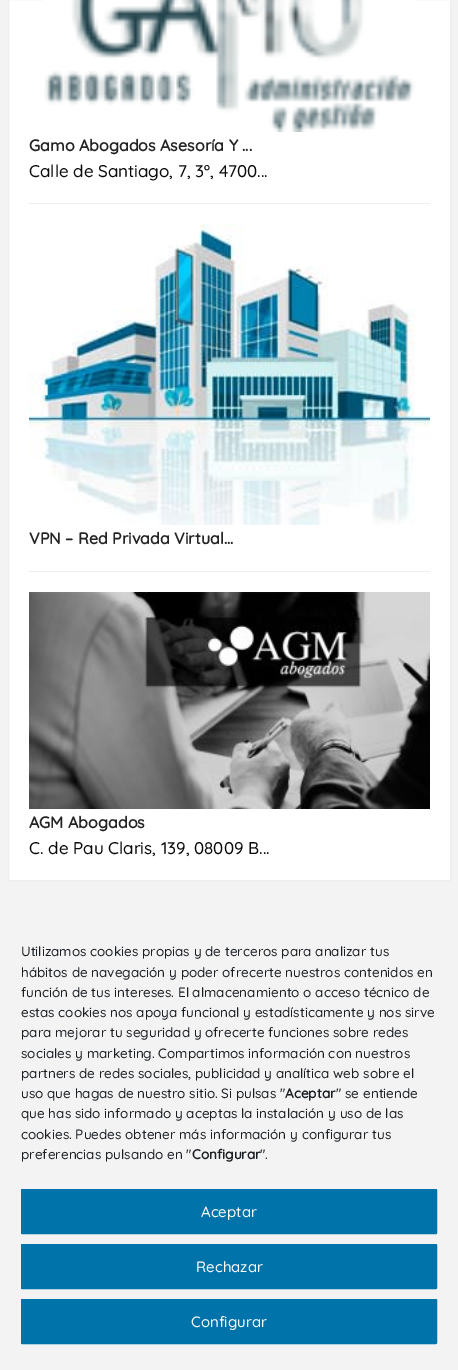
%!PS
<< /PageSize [458 1370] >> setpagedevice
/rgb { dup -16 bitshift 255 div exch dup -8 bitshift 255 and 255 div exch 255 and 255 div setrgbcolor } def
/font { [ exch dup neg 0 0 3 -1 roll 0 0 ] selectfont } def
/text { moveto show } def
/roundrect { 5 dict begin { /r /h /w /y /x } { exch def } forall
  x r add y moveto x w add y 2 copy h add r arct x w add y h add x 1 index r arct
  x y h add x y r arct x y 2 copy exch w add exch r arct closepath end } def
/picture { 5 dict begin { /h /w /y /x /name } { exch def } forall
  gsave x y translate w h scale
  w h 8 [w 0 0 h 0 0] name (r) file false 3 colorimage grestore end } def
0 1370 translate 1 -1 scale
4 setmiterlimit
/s1 { /Quicksand-Bold 16 font 16#242424 rgb } def
/s2 { /Quicksand-Light 17 font 16#0A0A0A rgb } def
/s3 { /Quicksand-Light 13.5 font 16#191E23 rgb } def
/s4 { /Quicksand-Bold 13.5 font 16#191E23 rgb } def
/s5 { /Quicksand-Light 15 font 16#FFFFFF rgb } def
16#F3F3F3 rgb
0 0 458 1370 rectfill
16#FFFFFF rgb
8.5 -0.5 moveto 450.5 -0.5 lineto 450.5 880.5 lineto 8.5 880.5 lineto closepath gsave fill grestore
16#EEEEEE rgb
stroke
29 203 401 1 rectfill
(pic1.raw) 44 0 371 132 picture
s1
(Gamo Abogados Asesoría Y ...) 29 151 text
s2
(Calle de Santiago, 7, 3º, 4700...) 29 177 text
16#EEEEEE rgb
29 571 401 1 rectfill
(pic2.raw) 29 224 401 301 picture
s1
(VPN – Red Privada Virtual...) 29 544 text
(pic3.raw) 29 592 401 217 picture
(AGM Abogados) 29 828 text
s2
(C. de Pau Claris, 139, 08009 B...) 29 854 text
s3
(Utilizamos cookies propias y de terceros para analizar tus) 21 956 text
(hábitos de navegación y poder ofrecerte nuestros contenidos en) 21 977 text
(función de tus intereses. El almacenamiento o acceso técnico de) 21 997 text
(estas cookies nos apoya funcional y estadísticamente y nos sirve) 21 1017 text
(para mejorar tu seguridad y ofrecerte funciones sobre redes) 21 1037 text
(sociales y marketing. Compartimos información con nuestros) 21 1058 text
(partners de redes sociales, publicidad y analítica web sobre el) 21 1078 text
(uso que hagas de nuestro sitio. Si pulsas ") 21 1098 text
s4
(Aceptar) 285 1098 text
s3
(" se entiende) 336 1098 text
(que has sido informado y aceptas la instalación y uso de las) 21 1118 text
(cookies. Puedes obtener más información y configurar tus) 21 1139 text
(preferencias pulsando en ") 21 1159 text
s4
(Configurar) 192 1159 text
s3
(".) 260 1159 text
16#0073AA rgb
21.5 1189.5 415 44 0.5 roundrect gsave fill grestore
stroke
s5
(Aceptar) 201 1217 text
16#0073AA rgb
21.5 1244.5 415 44 0.5 roundrect gsave fill grestore
stroke
s5
(Rechazar) 196 1272 text
16#0073AA rgb
21.5 1299.5 415 44 0.5 roundrect gsave fill grestore
stroke
s5
(Configurar) 191 1327 text
showpage
